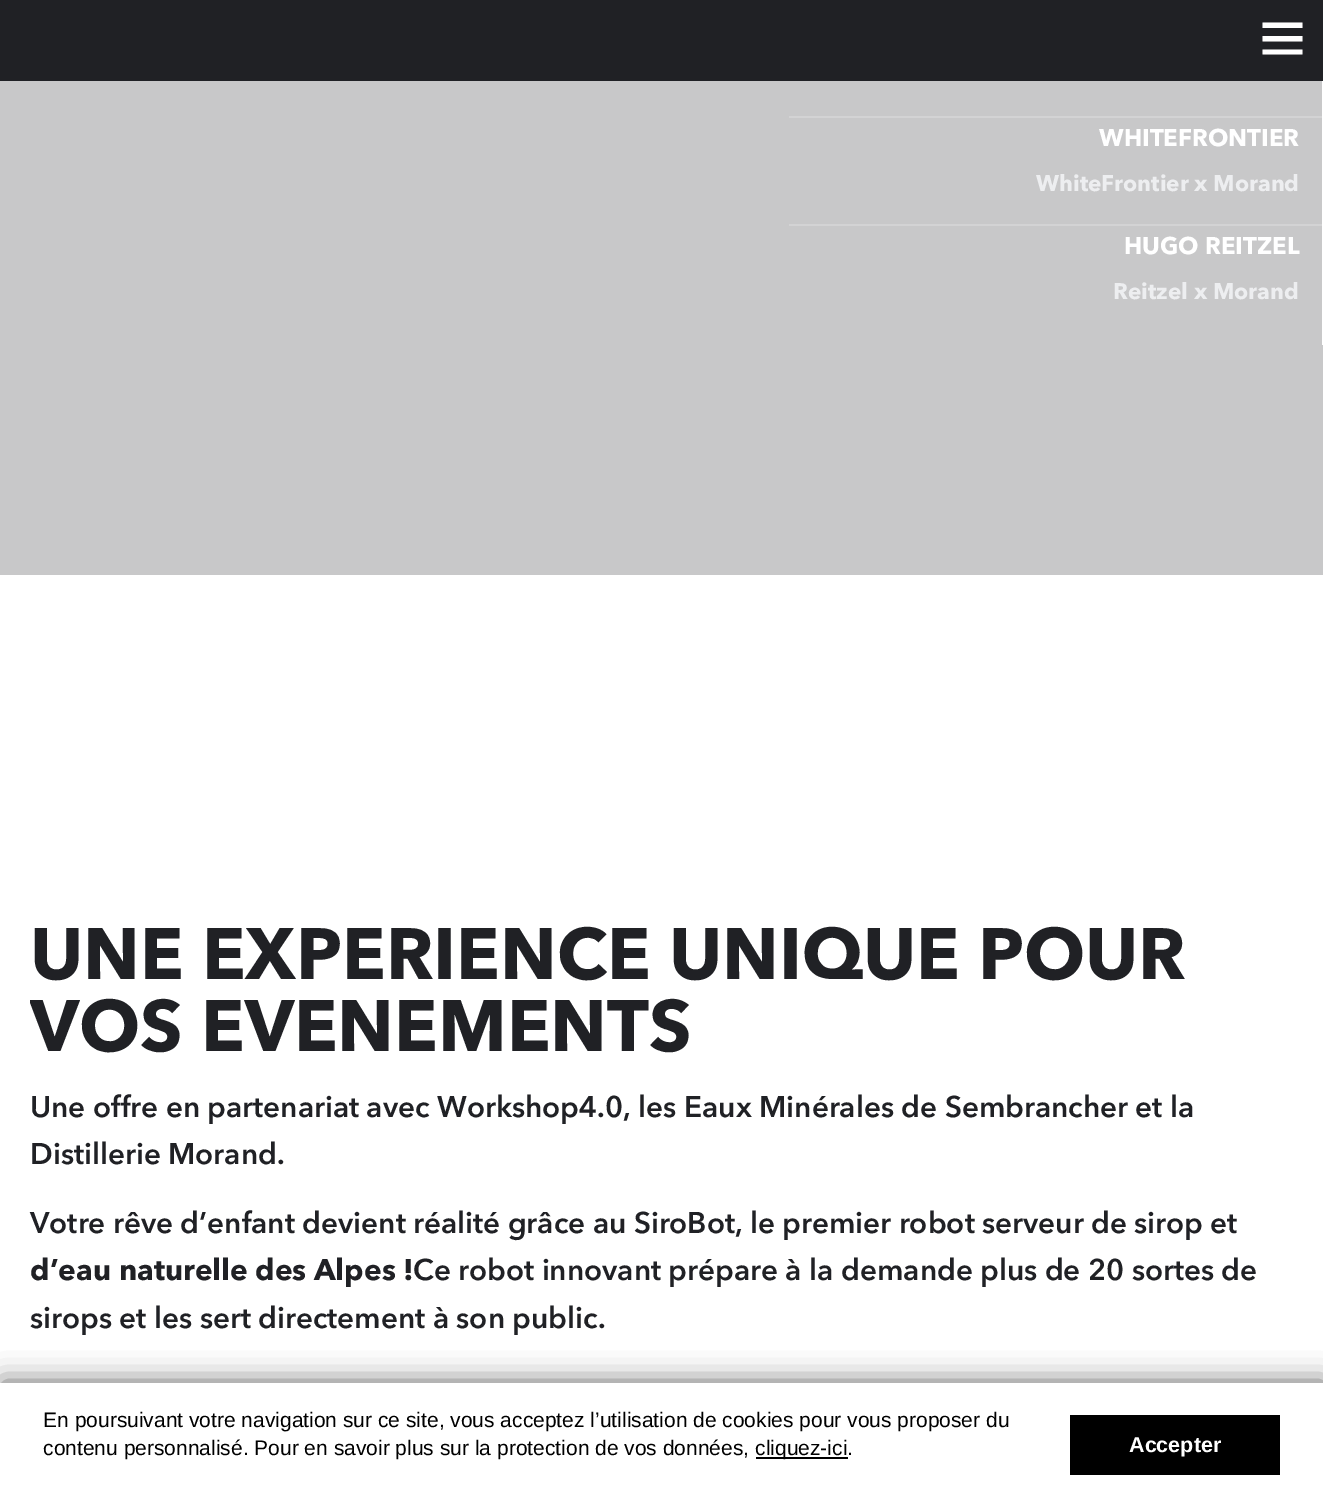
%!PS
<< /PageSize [1323 1506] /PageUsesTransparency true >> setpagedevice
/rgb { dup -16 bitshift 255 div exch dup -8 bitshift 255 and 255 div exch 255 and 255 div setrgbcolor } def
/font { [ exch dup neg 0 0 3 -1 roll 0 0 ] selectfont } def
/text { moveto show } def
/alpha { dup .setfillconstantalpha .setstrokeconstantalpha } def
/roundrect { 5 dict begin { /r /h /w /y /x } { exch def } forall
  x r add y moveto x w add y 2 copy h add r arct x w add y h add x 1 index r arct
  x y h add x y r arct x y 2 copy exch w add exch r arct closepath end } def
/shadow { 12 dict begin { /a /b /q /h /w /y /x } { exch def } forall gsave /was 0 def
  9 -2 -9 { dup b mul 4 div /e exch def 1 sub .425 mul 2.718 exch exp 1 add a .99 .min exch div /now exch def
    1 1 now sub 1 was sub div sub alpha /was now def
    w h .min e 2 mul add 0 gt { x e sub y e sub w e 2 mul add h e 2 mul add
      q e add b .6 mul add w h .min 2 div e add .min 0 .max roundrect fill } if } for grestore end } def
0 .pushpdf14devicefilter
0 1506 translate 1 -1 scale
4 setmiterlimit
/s1 { /AvenirNext-Bold 24 font 16#FFFFFF rgb } def
/s2 { /AvenirNext-Bold 22.5 font 16#EDEEF0 rgb } def
/s3 { /AvenirNext-Bold 72 font 16#202125 rgb } def
/s4 { /AvenirNext-SemiBold 29.7 font 16#202125 rgb } def
/s5 { /AvenirNext-Bold 29.7 font 16#202125 rgb } def
/s6 { /LiberationSans-Regular 21 font 16#000000 rgb } def
/s7 { /LiberationSans-Bold 21.5 font 16#FFFFFF rgb } def
16#FFFFFF rgb
0 0 1323 1506 rectfill
16#202125 rgb
0 0 1323 81 rectfill
16#FFFFFF rgb
1302.5 22.5 moveto 1302.5 28 lineto 1262.5 28 lineto 1262.5 22.5 lineto closepath 1262.5 41.5 moveto 1302.5 41.5 lineto 1302.5 36 lineto 1262.5 36 lineto closepath 1262.5 54.5 moveto 1302.5 54.5 lineto 1302.5 49.5 lineto 1262.5 49.5 lineto closepath fill
16#C8C8C9 rgb
0 81 1323 494 rectfill
16#FFFFFF rgb
1322 81 1 264 rectfill
16#D3D3D4 rgb
789 116 533 2 rectfill
s1
(WHITEFRONTIER) 1099 146 text
s2
(WhiteFrontier x Morand) 1036 191 text
16#D3D3D4 rgb
789 224 533 2 rectfill
s1
(HUGO REITZEL) 1124 254 text
s2
(Reitzel x Morand) 1113 299 text
s3
(UNE EXPERIENCE UNIQUE POUR) 30 979 text
gsave
30 918 1263 144 rectclip
(VOS EVENEMENTS) 30 1051 text
grestore
s4
(Une offre en partenariat avec Workshop4.0, les Eaux Minérales de Sembrancher et la) 30 1117 text
(Distillerie Morand.) 30 1164 text
(Votre rêve d’enfant devient réalité grâce au SiroBot, le premier robot serveur de sirop et) 30 1233 text
s5
(d’eau naturelle des Alpes !) 30 1280 text
s4
(Ce robot innovant prépare à la demande plus de 20 sortes de) 413 1280 text
(sirops et les sert directement à son public.) 30 1328 text
16#000000 rgb
2 1382 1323 123 0 14 0.59 shadow
16#FFFFFF rgb
0 1383 1323 123 rectfill
s6
(En poursuivant votre navigation sur ce site, vous acceptez l’utilisation de cookies pour vous proposer du) 43 1427 text
(contenu personnalisé. Pour en savoir plus sur la protection de vos données,) 43 1455 text
756 1457 92 2 rectfill
(cliquez-ici.) 755 1455 text
1070 1415 210 60 rectfill
s7
(Accepter) 1129 1452 text
.poppdf14devicefilter showpage
